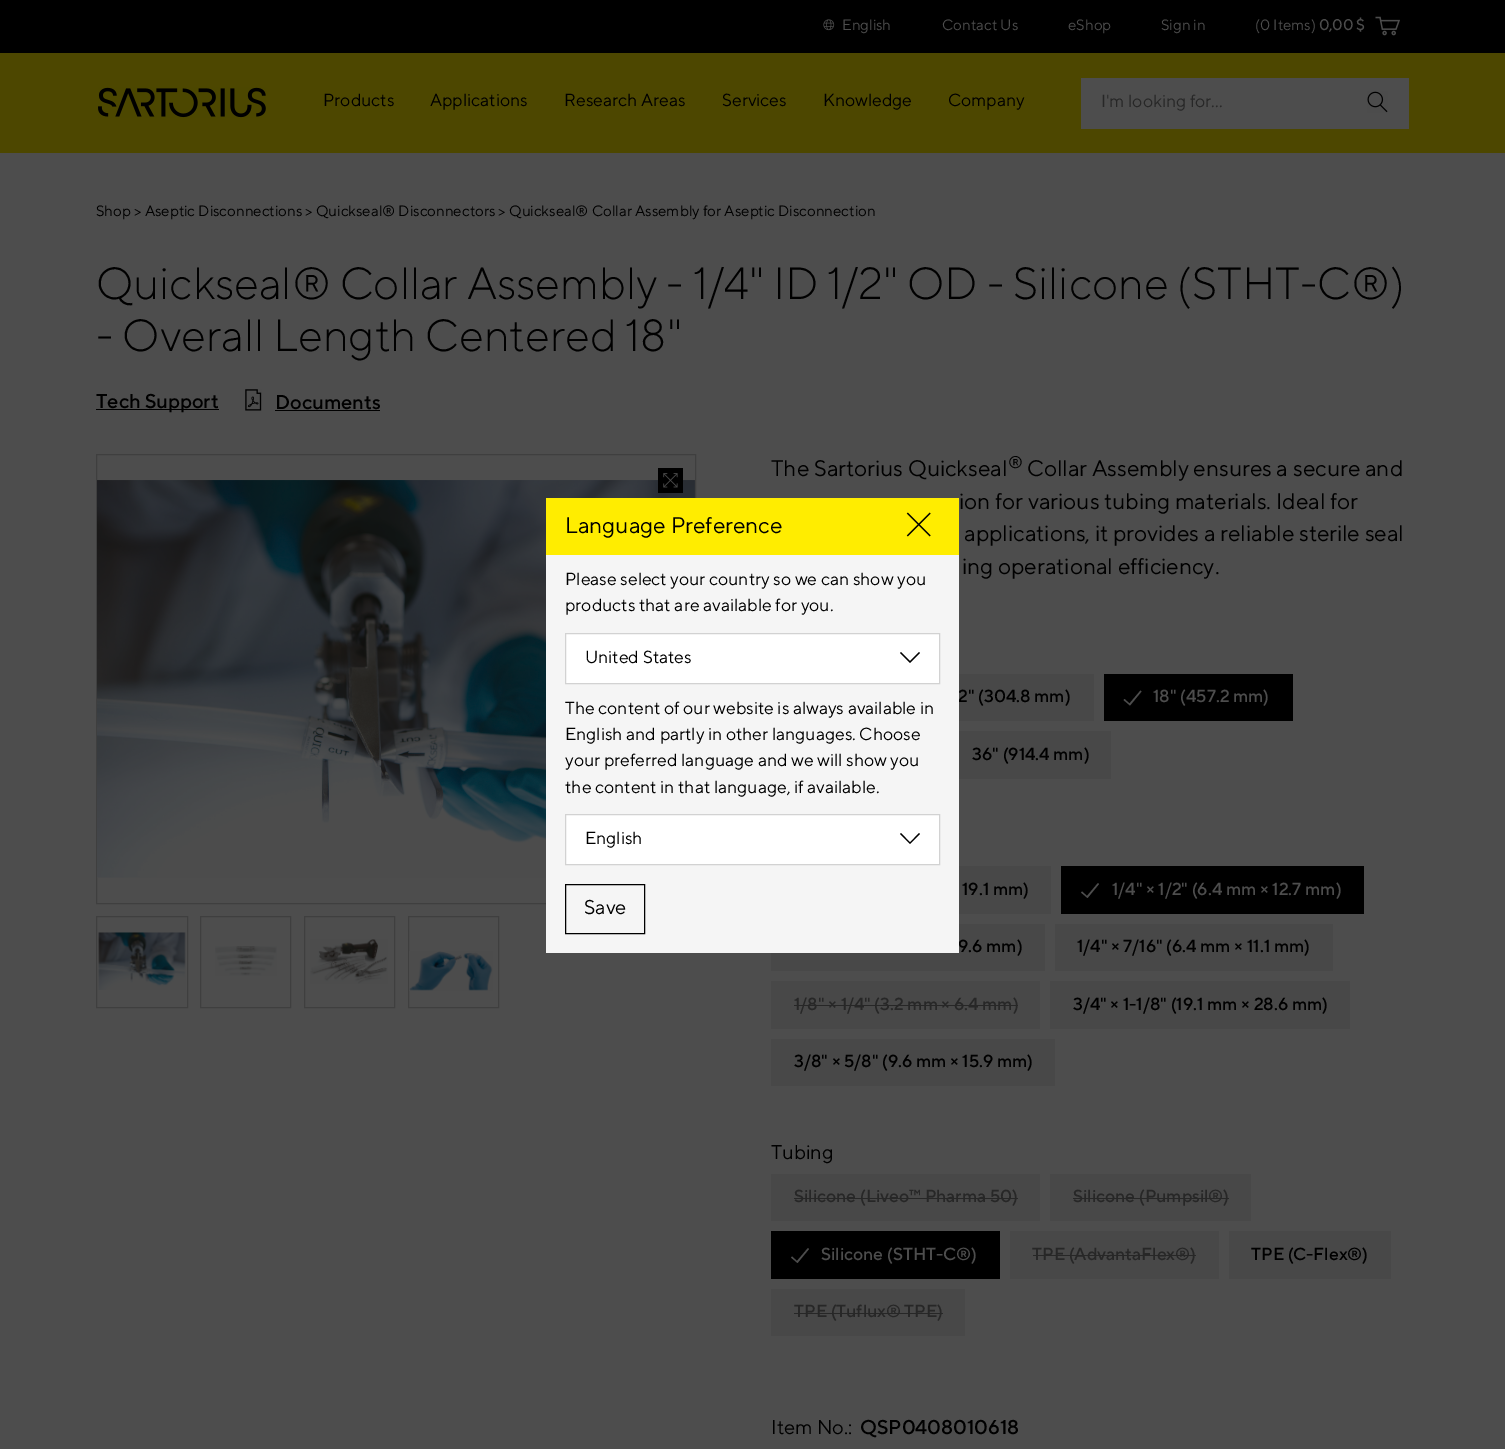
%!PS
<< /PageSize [1505 1449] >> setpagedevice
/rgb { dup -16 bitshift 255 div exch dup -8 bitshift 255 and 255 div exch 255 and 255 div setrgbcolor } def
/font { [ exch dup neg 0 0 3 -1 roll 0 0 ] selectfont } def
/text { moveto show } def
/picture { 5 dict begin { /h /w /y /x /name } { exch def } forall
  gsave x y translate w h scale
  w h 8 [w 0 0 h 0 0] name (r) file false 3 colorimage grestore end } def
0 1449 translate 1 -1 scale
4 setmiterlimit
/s1 { /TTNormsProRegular-Regular 15 font 16#4D4D4D rgb } def
/s2 { /TTNormsProRegular-Bold 15 font 16#4D4D4D rgb } def
/s3 { /TTNormsProRegular-Regular 17.5 font 16#000000 rgb } def
/s4 { /TTNormsProRegular-Regular 17.5 font 16#272727 rgb } def
/s5 { /TTNormsProRegular-Regular 15 font 16#000000 rgb } def
/s6 { /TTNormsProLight-Regular 45 font 16#000000 rgb } def
/s7 { /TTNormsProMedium-Regular 20 font 16#000000 rgb } def
/s8 { /TTNormsProRegular-Regular 22.5 font 16#000000 rgb } def
/s9 { /TTNormsProRegular-Regular 17 font 16#000000 rgb } def
/s10 { /TTNormsProMedium-Regular 17.5 font 16#000000 rgb } def
/s11 { /TTNormsProMedium-Regular 17.5 font 16#4D4D4D rgb } def
/s12 { /TTNormsProMedium-Regular 17.5 font 16#272727 rgb } def
/s13 { /TTNormsProRegular-Regular 20 font 16#000000 rgb } def
16#000000 rgb
0 0 1505 1449 rectfill
(pic1.raw) 823 19 12 12 picture
s1
(English) 842 30 text
(Contact Us) 942 30 text
(eShop) 1068 30 text
(Sign in) 1161 30 text
(\(0 Items\)) 1255 30 text
s2
(0,00 $) 1319 30 text
(pic2.raw) 1375 16 25 20 picture
16#4D4700 rgb
0 53 1505 100 rectfill
(pic3.raw) 98 87 168 31 picture
s3
(Products) 323 106 text
(Applications) 430 106 text
(Research Areas) 564 106 text
(Services) 722 106 text
(Knowledge) 823 106 text
(Company) 948 106 text
16#4D4D4D rgb
1081 78 328 51 rectfill
s4
(I'm looking for...) 1101 107 text
(pic4.raw) 1367 91 21 22 picture
16#4D4D4D rgb
0 153 1505 1296 rectfill
s5
(Shop > Aseptic Disconnections > Quickseal® Disconnectors > Quickseal® Collar Assembly for Aseptic Disconnection) 96 216 text
s6
(Quickseal® Collar Assembly - 1/4" ID 1/2" OD - Silicone \(STHT-C®\)) 96 299 text
(- Overall Length Centered 18") 96 351 text
96 409 123 1 rectfill
s7
(Tech Support) 96 408 text
(pic5.raw) 245 389 17 22 picture
(Documents) 275 409 text
275 410 105 1 rectfill
16#3F3F3F rgb
96.5 454.5 599 449 rectstroke
(pic7.raw) 97 480 598 398 picture
16#000000 rgb
658 468 25 25 rectfill
(pic6.raw) 663 473 15 15 picture
16#3F3F3F rgb
96.5 916.5 91 91 rectstroke
(pic8.raw) 98 932 88 58 picture
200.5 916.5 90 91 rectstroke
(pic9.raw) 215 946 62 30 picture
304.5 916.5 90 91 rectstroke
(pic10.raw) 310 939 78 45 picture
408.5 916.5 90 91 rectstroke
(pic11.raw) 409 951 84 40 picture
s8
(The Sartorius Quickseal) 771 476 text
s9
(®) 1008 468 text
s8
(Collar Assembly ensures a secure and) 1027 476 text
(ion for various tubing materials. Ideal for) 959 509 text
(applications, it provides a reliable sterile seal) 964 541 text
(ing operational efficiency.) 962 574 text
16#484848 rgb
959 674 135 47 rectfill
s10
(2" \(304.8 mm\)) 958 702 text
1104 674 189 47 rectfill
16#4D4D4D rgb
1130 705.5 moveto 1123.5 700 lineto 1124.5 699 lineto 1129.5 703.5 lineto 1140.5 690.5 lineto 1141.5 691.5 lineto closepath fill
(18" \(457.2 mm\)) 1153 702 text
16#484848 rgb
959 731 152 48 rectfill
s10
(36" \(914.4 mm\)) 972 760 text
16#484848 rgb
959 866 92 48 rectfill
s10
(19.1 mm\)) 962 895 text
1061 866 303 48 rectfill
16#4D4D4D rgb
1087.5 898 moveto 1081 892.5 lineto 1082 891.5 lineto 1087 896 lineto 1098 883 lineto 1099 884 lineto closepath fill
(1/4" × 1/2" \(6.4 mm × 12.7 mm\)) 1112 895 text
16#484848 rgb
771 924 274 47 rectfill
s10
(9.6 mm\)) 958 952 text
16#484848 rgb
1055 924 278 47 rectfill
s10
(1/4" × 7/16" \(6.4 mm × 11.1 mm\)) 1077 952 text
16#484848 rgb
771 981 269 48 rectfill
s12
(1/8" × 1/4" \(3.2 mm × 6.4 mm\)) 794 1010 text
794 1005 224 1 rectfill
16#484848 rgb
1050 981 300 48 rectfill
s10
(3/4" × 1-1/8" \(19.1 mm × 28.6 mm\)) 1073 1010 text
16#484848 rgb
771 1039 284 47 rectfill
s10
(3/8" × 5/8" \(9.6 mm × 15.9 mm\)) 794 1067 text
s13
(Tubing) 771 1159 text
16#484848 rgb
771 1174 269 47 rectfill
s12
(Silicone \(Liveo™ Pharma 50\)) 794 1202 text
794 1198 224 1 rectfill
16#484848 rgb
1050 1174 201 47 rectfill
s12
(Silicone \(Pumpsil®\)) 1073 1202 text
1073 1198 156 1 rectfill
16#000000 rgb
771 1231 229 48 rectfill
16#4D4D4D rgb
797.5 1263 moveto 791 1257.5 lineto 792 1256.5 lineto 797 1261 lineto 808 1248 lineto 809 1249 lineto closepath fill
(Silicone \(STHT-C®\)) 821 1260 text
16#484848 rgb
1010 1231 209 48 rectfill
s12
(TPE \(AdvantaFlex®\)) 1032 1260 text
1033 1255 163 1 rectfill
16#484848 rgb
1229 1231 162 48 rectfill
s10
(TPE \(C-Flex®\)) 1251 1260 text
16#484848 rgb
771 1289 194 47 rectfill
s12
(TPE \(Tuflux® TPE\)) 794 1317 text
794 1313 149 1 rectfill
s13
(Item No.:) 771 1434 text
s7
(QSP0408010618) 860 1434 text
16#F5F5F5 rgb
546 555 413 398 rectfill
16#FFED00 rgb
546 498 413 57 rectfill
s8
(Language Preference) 565 533 text
(pic12.raw) 906 512 25 25 picture
s3
(Please select your country so we can show you) 565 585 text
(products that are available for you.) 565 611 text
16#FFFFFF rgb
565.5 633.5 moveto 939.5 633.5 lineto 939.5 683.5 lineto 565.5 683.5 lineto closepath gsave fill grestore
16#D2D2D2 rgb
stroke
s3
(United States) 585 663 text
910 663 moveto 900 653 lineto 901 652 lineto 910 661 lineto 919 652 lineto 920 653 lineto closepath fill
(The content of our website is always available in) 565 714 text
(English and partly in other languages. Choose) 565 740 text
(your preferred language and we will show you) 565 766 text
(the content in that language, if available.) 565 793 text
16#FFFFFF rgb
565.5 814.5 moveto 939.5 814.5 lineto 939.5 864.5 lineto 565.5 864.5 lineto closepath gsave fill grestore
16#D2D2D2 rgb
stroke
s3
(English) 585 844 text
910 844 moveto 900 834 lineto 901 833 lineto 910 842.5 lineto 919 833 lineto 920 834 lineto closepath fill
565.5 884.5 79 49 rectstroke
s13
(Save) 584 914 text
showpage
